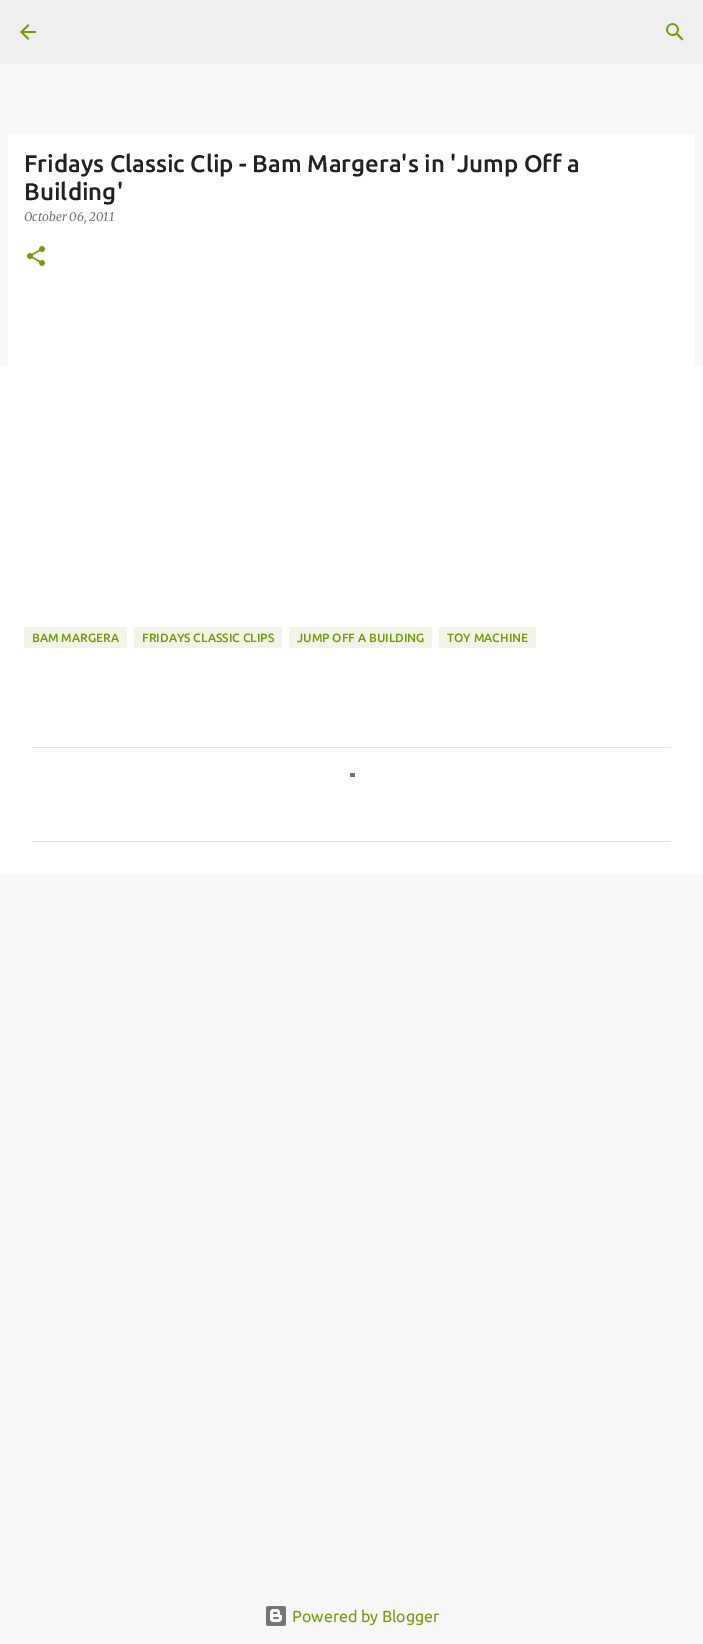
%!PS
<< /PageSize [703 1644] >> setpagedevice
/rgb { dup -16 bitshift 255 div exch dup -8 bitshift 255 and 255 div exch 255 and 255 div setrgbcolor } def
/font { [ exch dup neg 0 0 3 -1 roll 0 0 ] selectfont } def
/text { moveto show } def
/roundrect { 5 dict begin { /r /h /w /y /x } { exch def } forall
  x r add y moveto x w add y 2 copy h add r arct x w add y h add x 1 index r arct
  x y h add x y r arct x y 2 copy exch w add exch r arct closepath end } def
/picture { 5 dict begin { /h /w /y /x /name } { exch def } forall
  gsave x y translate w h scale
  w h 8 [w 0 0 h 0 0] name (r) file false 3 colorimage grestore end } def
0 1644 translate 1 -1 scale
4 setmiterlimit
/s1 { /Ubuntu-Medium 24 font 16#212121 rgb } def
/s2 { /Merriweather-LightItalic 12 font 16#757575 rgb } def
/s3 { /Ubuntu-Medium 12 font 16#729C0B rgb } def
/s4 { /Ubuntu-Regular 16 font 16#729C0B rgb } def
16#F7F7F7 rgb
0 0 703 1644 rectfill
16#EFEFEF rgb
0 0 703 64 rectfill
(pic1.raw) 20 24 16 16 picture
(pic2.raw) 666 23 18 18 picture
16#FFFFFF rgb
0 366 703 508 rectfill
8 134 687 232 rectfill
s1
(Fridays Classic Clip - Bam Margera's in 'Jump Off a) 24 172 text
(Building') 24 200 text
s2
(October 06, 2011) 24 221 text
(pic3.raw) 27 246 18 20 picture
16#F1F5E7 rgb
24 627 103 21 2 roundrect fill
s3
(BAM MARGERA) 32 642 text
16#F1F5E7 rgb
134 627 148 21 2 roundrect fill
s3
(FRIDAYS CLASSIC CLIPS) 142 642 text
16#F1F5E7 rgb
289 627 143 21 2 roundrect fill
s3
(JUMP OFF A BUILDING) 297 642 text
16#F1F5E7 rgb
439 627 97 21 2 roundrect fill
s3
(TOY MACHINE) 447 642 text
16#E0E0E0 rgb
32 747 639 1 rectfill
32 841 639 1 rectfill
(pic4.raw) 266 1606 20 20 picture
s4
(Powered by Blogger) 292 1622 text
16#757575 rgb
350 773 5 4 rectfill
showpage
